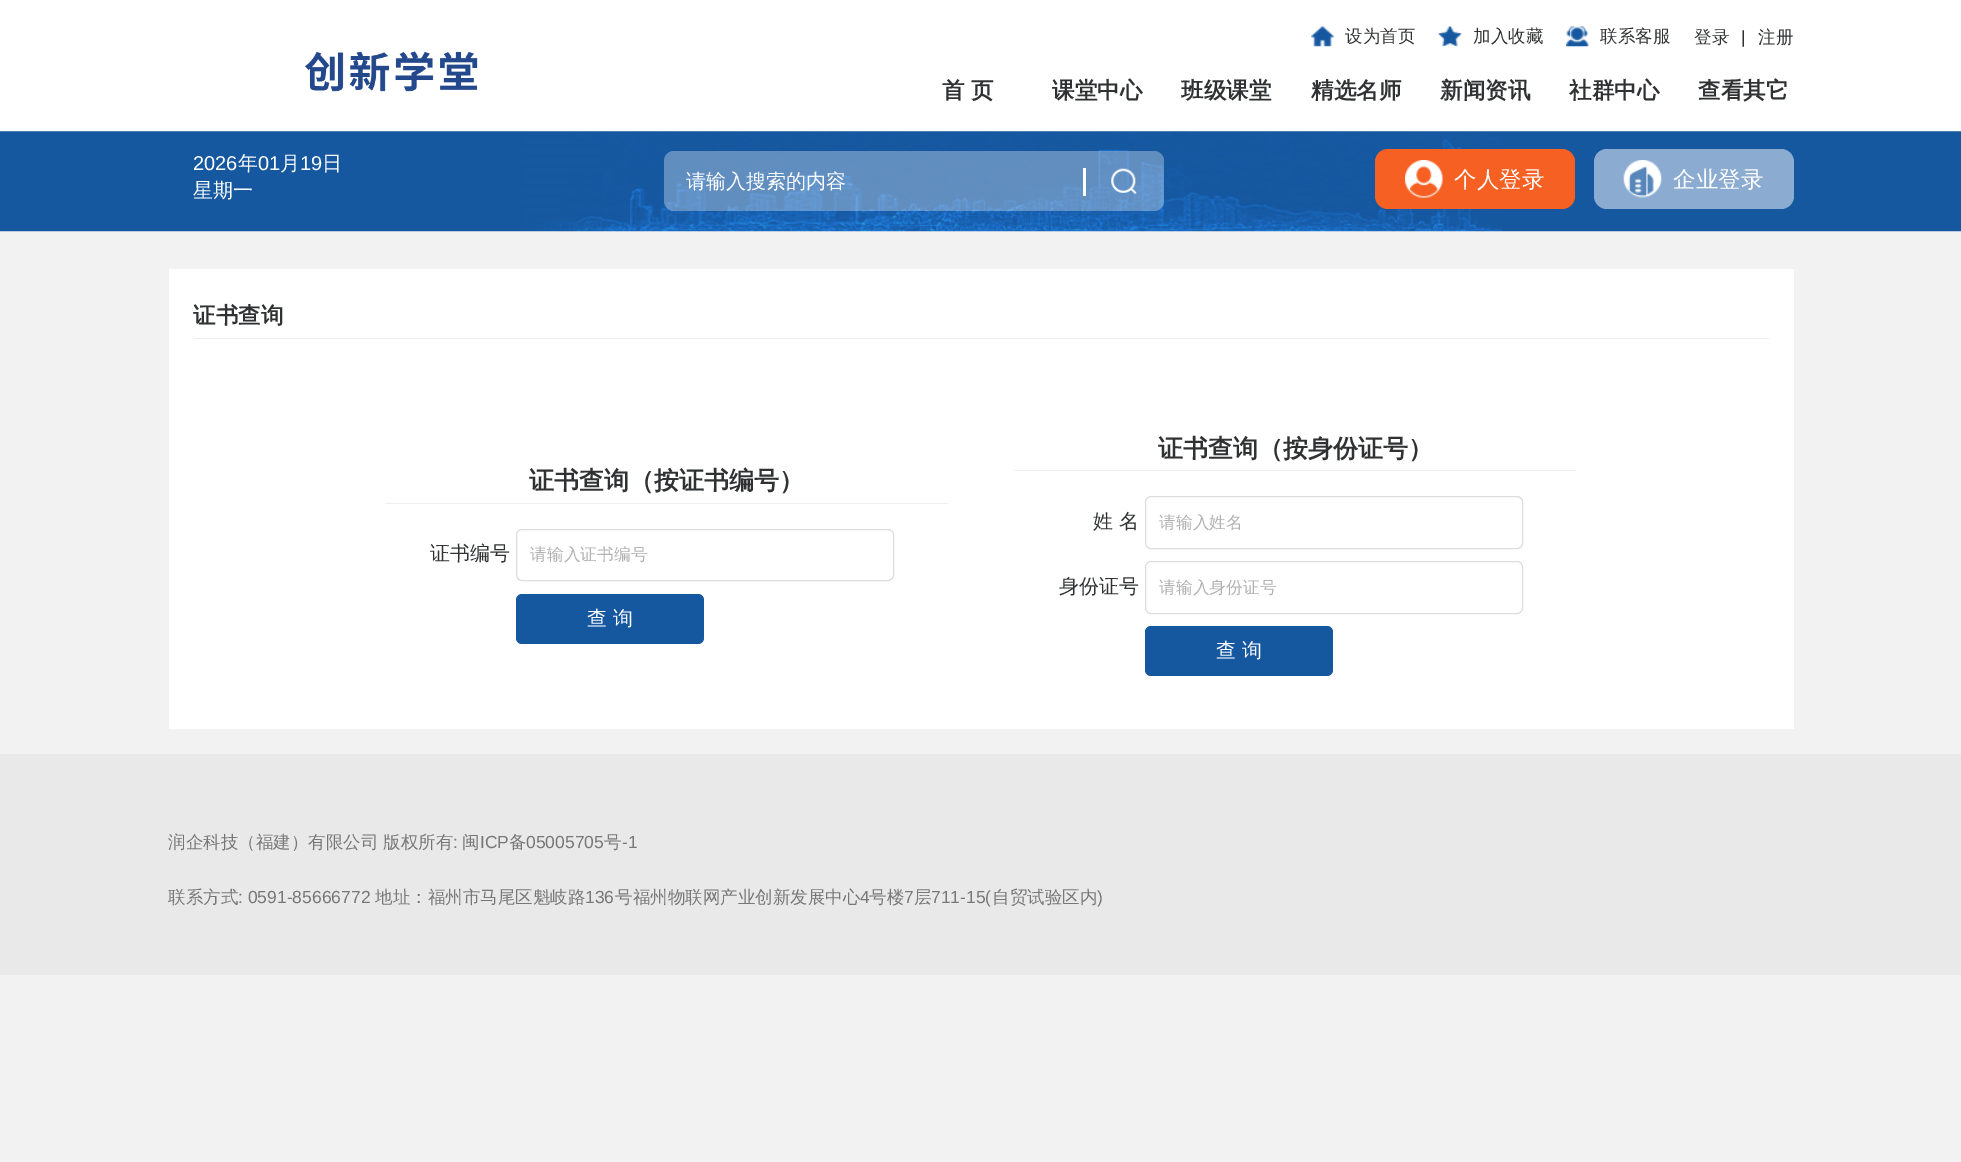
%!PS
<< /PageSize [1961 1162] /PageUsesTransparency true >> setpagedevice
/rgb { dup -16 bitshift 255 div exch dup -8 bitshift 255 and 255 div exch 255 and 255 div setrgbcolor } def
/font { [ exch dup neg 0 0 3 -1 roll 0 0 ] selectfont } def
/text { moveto show } def
/alpha { dup .setfillconstantalpha .setstrokeconstantalpha } def
/roundrect { 5 dict begin { /r /h /w /y /x } { exch def } forall
  x r add y moveto x w add y 2 copy h add r arct x w add y h add x 1 index r arct
  x y h add x y r arct x y 2 copy exch w add exch r arct closepath end } def
/picture { 5 dict begin { /h /w /y /x /name } { exch def } forall
  gsave x y translate w h scale
  w h 8 [w 0 0 h 0 0] name (r) file false 3 colorimage grestore end } def
0 .pushpdf14devicefilter
0 1162 translate 1 -1 scale
4 setmiterlimit
/s1 { /WenQuanYiZenHei-Medium 17.5 font 16#2F3133 rgb } def
/s2 { /LiberationSans-Regular 17.5 font 16#2F3133 rgb } def
/s3 { /WenQuanYiZenHei-Bold 22.5 font 16#2F3133 rgb } def
/s4 { /LiberationSans-Regular 20 font 16#FFFFFF rgb } def
/s5 { /WenQuanYiZenHei-Medium 20 font 16#FFFFFF rgb } def
/s6 { /WenQuanYiZenHei-Medium 22.5 font 16#FFFFFF rgb } def
/s7 { /WenQuanYiZenHei-Bold 25 font 16#2F3133 rgb } def
/s8 { /WenQuanYiZenHei-Medium 20 font 16#2F3133 rgb } def
/s9 { /WenQuanYiZenHei-Medium 16.75 font 16#B1B1B1 rgb } def
/s10 { /WenQuanYiZenHei-Medium 17.5 font 16#777777 rgb } def
/s11 { /LiberationSans-Regular 17.5 font 16#777777 rgb } def
16#F2F2F2 rgb
0 0 1961 1162 rectfill
16#FFFFFF rgb
0 0 1961 131 rectfill
(pic1.raw) 305 51 173 41 picture
(pic2.raw) 1311 26 23 21 picture
s1
(设为首页) 1345 42 text
(pic3.raw) 1438 26 24 21 picture
(加入收藏) 1473 42 text
(pic4.raw) 1566 26 23 21 picture
(联系客服) 1600 42 text
(登录) 1694 43 text
s2
(|) 1741 43 text
s1
(注册) 1758 43 text
s3
(首 页) 942 98 text
(课堂中心) 1052 98 text
(班级课堂) 1181 98 text
(精选名师) 1311 98 text
(新闻资讯) 1440 98 text
(社群中心) 1569 98 text
(查看其它) 1698 98 text
(pic5.raw) 0 131 1961 101 picture
s4
(2026) 193 170 text
s5
(年) 238 170 text
s4
(01) 258 170 text
s5
(月) 280 170 text
s4
(19) 300 170 text
s5
(日) 322 170 text
(星期一) 193 197 text
0.32 alpha
664 151 500 60 10 roundrect fill
1 alpha
1083 168 3 28 rectfill
(请输入搜索的内容) 686 188 text
(pic6.raw) 1111 168 26 26 picture
16#F66023 rgb
1375 149 200 60 13 roundrect fill
(pic7.raw) 1405 160 38 38 picture
s6
(个人登录) 1454 187 text
16#8BACD0 rgb
1594 149 200 60 13 roundrect fill
(pic8.raw) 1623 160 39 38 picture
s6
(企业登录) 1673 187 text
169 269 1625 460 rectfill
16#EEEEEE rgb
194 338 1575 1 rectfill
s3
(证书查询) 193 323 text
16#EEEEEE rgb
385 503 563 1 rectfill
s7
(证书查询（按证书编号）) 529 489 text
s8
(证书编号) 430 560 text
16#DDDDDD rgb
516.5 529.5 377 51 5.5 roundrect stroke
s9
(请输入证书编号) 530 560 text
16#1658A0 rgb
516 594 188 50 6 roundrect fill
s5
(查 询) 587 625 text
16#EEEEEE rgb
1014 470 562 1 rectfill
s7
(证书查询（按身份证号）) 1158 457 text
s8
(姓 名) 1093 528 text
16#DDDDDD rgb
1145.5 496.5 377 52 5.5 roundrect stroke
s9
(请输入姓名) 1159 528 text
s8
(身份证号) 1059 593 text
16#DDDDDD rgb
1145.5 561.5 377 52 5.5 roundrect stroke
s9
(请输入身份证号) 1159 593 text
16#1658A0 rgb
1145 626 188 50 6 roundrect fill
s5
(查 询) 1216 657 text
16#E9E9E9 rgb
0 754 1961 221 rectfill
s10
(润企科技（福建）有限公司 版权所有) 168 848 text
s11
(:) 453 848 text
s10
(闽) 462 848 text
s11
(ICP) 480 848 text
s10
(备) 509 848 text
s11
(05005705) 526 848 text
s10
(号) 604 848 text
s11
(-1) 622 848 text
s10
(联系方式) 168 903 text
s11
(: 0591-85666772) 238 903 text
s10
(地址：福州市马尾区魁岐路) 375 903 text
s11
(136) 585 903 text
s10
(号福州物联网产业创新发展中心) 615 903 text
s11
(4) 860 903 text
s10
(号楼) 869 903 text
s11
(7) 904 903 text
s10
(层) 914 903 text
s11
(711-15\() 931 903 text
s10
(自贸试验区内) 992 903 text
s11
(\)) 1097 903 text
.poppdf14devicefilter showpage
